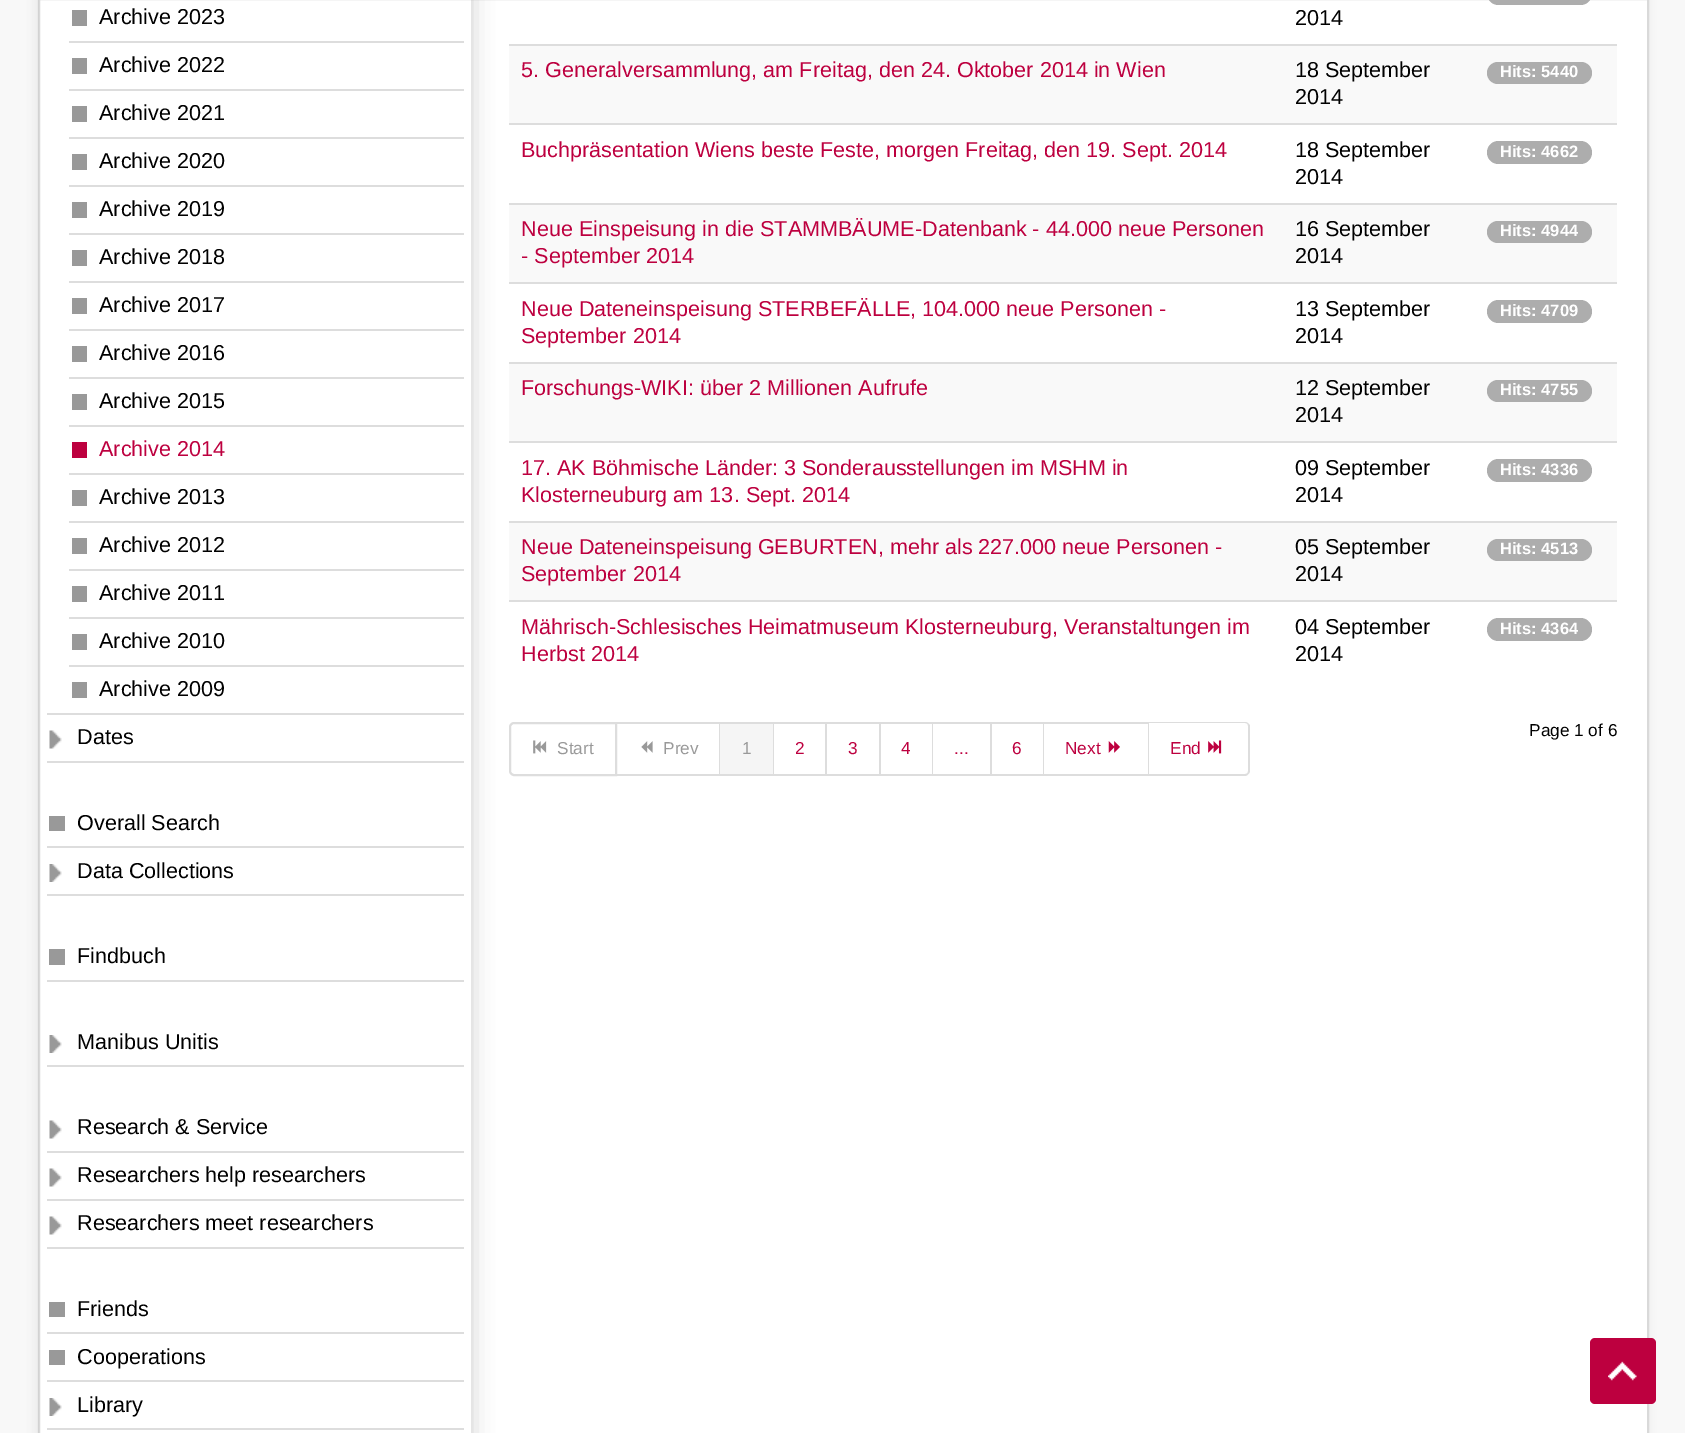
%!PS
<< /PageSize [1685 1433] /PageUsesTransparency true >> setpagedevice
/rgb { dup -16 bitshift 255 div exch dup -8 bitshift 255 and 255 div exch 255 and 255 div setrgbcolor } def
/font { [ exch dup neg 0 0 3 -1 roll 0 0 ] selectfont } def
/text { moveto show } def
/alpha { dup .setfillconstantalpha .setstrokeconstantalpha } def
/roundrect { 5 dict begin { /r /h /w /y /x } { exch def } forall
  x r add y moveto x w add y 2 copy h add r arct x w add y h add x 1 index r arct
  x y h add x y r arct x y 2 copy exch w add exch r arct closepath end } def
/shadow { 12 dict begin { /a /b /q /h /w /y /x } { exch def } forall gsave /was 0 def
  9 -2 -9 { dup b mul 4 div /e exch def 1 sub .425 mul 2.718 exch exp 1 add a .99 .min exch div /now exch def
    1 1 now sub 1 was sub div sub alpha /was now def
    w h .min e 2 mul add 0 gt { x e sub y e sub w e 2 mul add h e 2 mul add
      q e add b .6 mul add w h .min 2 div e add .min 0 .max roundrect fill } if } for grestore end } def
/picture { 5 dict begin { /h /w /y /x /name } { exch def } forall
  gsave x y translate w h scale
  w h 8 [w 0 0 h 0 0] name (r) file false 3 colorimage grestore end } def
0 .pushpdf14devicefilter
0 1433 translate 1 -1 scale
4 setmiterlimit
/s1 { /LiberationSans-Regular 21.6 font 16#000000 rgb } def
/s2 { /LiberationSans-Regular 21.6 font 16#BD003F rgb } def
/s3 { /LiberationSans-Bold 16.5 font 16#FFFFFF rgb } def
/s4 { /LiberationSans-Regular 17.25 font 16#000000 rgb } def
/s5 { /LiberationSans-Regular 17.25 font 16#999999 rgb } def
/s6 { /LiberationSans-Regular 17.25 font 16#BD003F rgb } def
16#F8F8F8 rgb
0 0 1685 1433 rectfill
16#000000 rgb
38 -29 1611 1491 15 4.5 0.05 shadow
16#FFFFFF rgb
39 -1 moveto 1648 -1 lineto 1648 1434 lineto 39 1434 lineto closepath gsave fill grestore
16#D9D9D9 rgb
2 setlinewidth
stroke
gsave
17 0 moveto 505 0 lineto 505 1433 lineto 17 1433 lineto closepath 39 -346 moveto 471 -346 lineto 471 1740 lineto 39 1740 lineto closepath eoclip newpath
16#000000 rgb
51 -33 420 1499 0 11 0.2 shadow
grestore
16#999999 rgb
72 10 15 16 rectfill
s1
(Archive 2023) 99 24 text
16#DDDDDD rgb
69 41 395 2 rectfill
16#999999 rgb
72 58 15 16 rectfill
s1
(Archive 2022) 99 72 text
16#DDDDDD rgb
69 89 395 2 rectfill
16#999999 rgb
72 106 15 16 rectfill
s1
(Archive 2021) 99 120 text
16#DDDDDD rgb
69 137 395 2 rectfill
16#999999 rgb
72 154 15 16 rectfill
s1
(Archive 2020) 99 168 text
16#DDDDDD rgb
69 185 395 2 rectfill
16#999999 rgb
72 202 15 16 rectfill
s1
(Archive 2019) 99 216 text
16#DDDDDD rgb
69 233 395 2 rectfill
16#999999 rgb
72 250 15 16 rectfill
s1
(Archive 2018) 99 264 text
16#DDDDDD rgb
69 281 395 2 rectfill
16#999999 rgb
72 298 15 16 rectfill
s1
(Archive 2017) 99 312 text
16#DDDDDD rgb
69 329 395 2 rectfill
16#999999 rgb
72 346 15 16 rectfill
s1
(Archive 2016) 99 360 text
16#DDDDDD rgb
69 377 395 2 rectfill
16#999999 rgb
72 394 15 16 rectfill
s1
(Archive 2015) 99 408 text
16#DDDDDD rgb
69 425 395 2 rectfill
16#BD003F rgb
72 442 15 16 rectfill
(Archive 2014) 99 456 text
16#DDDDDD rgb
69 473 395 2 rectfill
16#999999 rgb
72 490 15 16 rectfill
s1
(Archive 2013) 99 504 text
16#DDDDDD rgb
69 521 395 2 rectfill
16#999999 rgb
72 538 15 16 rectfill
s1
(Archive 2012) 99 552 text
16#DDDDDD rgb
69 569 395 2 rectfill
16#999999 rgb
72 586 15 16 rectfill
s1
(Archive 2011) 99 600 text
16#DDDDDD rgb
69 617 395 2 rectfill
16#999999 rgb
72 634 15 16 rectfill
s1
(Archive 2010) 99 648 text
16#DDDDDD rgb
69 665 395 2 rectfill
16#999999 rgb
72 682 15 16 rectfill
s1
(Archive 2009) 99 696 text
16#DDDDDD rgb
47 713 417 2 rectfill
(pic1.raw) 49 730 13 19 picture
s1
(Dates) 77 744 text
16#DDDDDD rgb
47 761 417 2 rectfill
16#999999 rgb
49 816 16 15 rectfill
s1
(Overall Search) 77 830 text
16#DDDDDD rgb
47 846 417 2 rectfill
(pic2.raw) 49 864 13 18 picture
s1
(Data Collections) 77 878 text
16#DDDDDD rgb
47 894 417 2 rectfill
16#999999 rgb
49 949 16 16 rectfill
s1
(Findbuch) 77 963 text
16#DDDDDD rgb
47 980 417 2 rectfill
(pic2.raw) 49 1035 13 18 picture
s1
(Manibus Unitis) 77 1049 text
16#DDDDDD rgb
47 1065 417 2 rectfill
(pic1.raw) 49 1120 13 19 picture
s1
(Research & Service) 77 1134 text
16#DDDDDD rgb
47 1151 417 2 rectfill
(pic1.raw) 49 1168 13 19 picture
s1
(Researchers help researchers) 77 1182 text
16#DDDDDD rgb
47 1199 417 2 rectfill
(pic1.raw) 49 1216 13 19 picture
s1
(Researchers meet researchers) 77 1230 text
16#DDDDDD rgb
47 1247 417 2 rectfill
16#999999 rgb
49 1302 16 15 rectfill
s1
(Friends) 77 1316 text
16#DDDDDD rgb
47 1332 417 2 rectfill
16#999999 rgb
49 1350 16 15 rectfill
s1
(Cooperations) 77 1364 text
16#DDDDDD rgb
47 1380 417 2 rectfill
(pic2.raw) 49 1398 13 18 picture
s1
(Library) 77 1412 text
16#DDDDDD rgb
47 1428 417 2 rectfill
16#ADADAD rgb
1487 -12 105 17 11.5 roundrect fill
s1
(2014) 1295 25 text
16#F9F9F9 rgb
509 46 1108 77 rectfill
16#DDDDDD rgb
509 44 1108 2 rectfill
s2
(5. Generalversammlung, am Freitag, den 24. Oktober 2014 in Wien) 521 77 text
s1
(18 September) 1295 77 text
(2014) 1295 104 text
16#ADADAD rgb
1487 62 105 22 11 roundrect fill
s3
(Hits: 5440) 1500 77 text
16#DDDDDD rgb
509 123 1108 2 rectfill
s2
(Buchpräsentation Wiens beste Feste, morgen Freitag, den 19. Sept. 2014) 521 157 text
s1
(18 September) 1295 157 text
(2014) 1295 184 text
16#ADADAD rgb
1487 141 105 23 11.5 roundrect fill
s3
(Hits: 4662) 1500 157 text
16#F9F9F9 rgb
509 205 1108 77 rectfill
16#DDDDDD rgb
509 203 1108 2 rectfill
s2
(Neue Einspeisung in die STAMMBÄUME-Datenbank - 44.000 neue Personen) 521 236 text
(- September 2014) 521 263 text
s1
(16 September) 1295 236 text
(2014) 1295 263 text
16#ADADAD rgb
1487 221 105 22 11 roundrect fill
s3
(Hits: 4944) 1500 236 text
16#DDDDDD rgb
509 282 1108 2 rectfill
s2
(Neue Dateneinspeisung STERBEFÄLLE, 104.000 neue Personen -) 521 316 text
(September 2014) 521 343 text
s1
(13 September) 1295 316 text
(2014) 1295 343 text
16#ADADAD rgb
1487 300 105 23 11.5 roundrect fill
s3
(Hits: 4709) 1500 316 text
16#F9F9F9 rgb
509 364 1108 77 rectfill
16#DDDDDD rgb
509 362 1108 2 rectfill
s2
(Forschungs-WIKI: über 2 Millionen Aufrufe) 521 395 text
s1
(12 September) 1295 395 text
(2014) 1295 422 text
16#ADADAD rgb
1487 380 105 22 11 roundrect fill
s3
(Hits: 4755) 1500 395 text
16#DDDDDD rgb
509 441 1108 2 rectfill
s2
(17. AK Böhmische Länder: 3 Sonderausstellungen im MSHM in) 521 475 text
(Klosterneuburg am 13. Sept. 2014) 521 502 text
s1
(09 September) 1295 475 text
(2014) 1295 502 text
16#ADADAD rgb
1487 459 105 23 11.5 roundrect fill
s3
(Hits: 4336) 1500 475 text
16#F9F9F9 rgb
509 523 1108 77 rectfill
16#DDDDDD rgb
509 521 1108 2 rectfill
s2
(Neue Dateneinspeisung GEBURTEN, mehr als 227.000 neue Personen -) 521 554 text
(September 2014) 521 581 text
s1
(05 September) 1295 554 text
(2014) 1295 581 text
16#ADADAD rgb
1487 539 105 22 11 roundrect fill
s3
(Hits: 4513) 1500 554 text
16#DDDDDD rgb
509 600 1108 2 rectfill
s2
(Mährisch-Schlesisches Heimatmuseum Klosterneuburg, Veranstaltungen im) 521 634 text
(Herbst 2014) 521 661 text
s1
(04 September) 1295 634 text
(2014) 1295 661 text
16#ADADAD rgb
1487 618 105 23 11.5 roundrect fill
s3
(Hits: 4364) 1500 634 text
s4
(Page 1 of 6) 1529 736 text
16#DDDDDD rgb
514 723 moveto 616 723 lineto 616 775 lineto 514 775 lineto 512 775 510 773 510 771 curveto 510 727 lineto 510 725 512 723 514 723 curveto closepath stroke
(pic3.raw) 533 740 14 14 picture
s5
(Start) 557 754 text
16#DDDDDD rgb
617 722 532 2 rectfill
719 722 1 54 rectfill
617 774 103 2 rectfill
(pic4.raw) 641 741 12 12 picture
s5
(Prev) 663 754 text
16#F5F5F5 rgb
720 724 53 50 rectfill
16#DDDDDD rgb
773 722 1 54 rectfill
720 774 54 2 rectfill
s5
(1) 742 754 text
16#DDDDDD rgb
825 722 2 54 rectfill
774 774 53 2 rectfill
s6
(2) 795 754 text
16#DDDDDD rgb
879 722 2 54 rectfill
827 774 54 2 rectfill
s6
(3) 848 754 text
16#DDDDDD rgb
932 722 1 54 rectfill
881 774 52 2 rectfill
s6
(4) 901 754 text
16#DDDDDD rgb
990 722 2 54 rectfill
933 774 59 2 rectfill
s6
(...) 954 754 text
16#DDDDDD rgb
1043 722 1 54 rectfill
992 774 52 2 rectfill
s6
(6) 1012 754 text
16#DDDDDD rgb
1148 722 1 54 rectfill
1044 774 105 2 rectfill
s6
(Next) 1065 754 text
(pic5.raw) 1108 741 12 12 picture
16#DDDDDD rgb
1149 722 moveto 1245 722 lineto 1247 722 1250 724 1250 726 curveto 1250 771 lineto 1250 773 1247 776 1245 776 curveto 1149 776 lineto closepath 1149 723 moveto 1245 723 lineto 1247 723 1248 724 1248 726 curveto 1248 771 lineto 1248 773 1247 774 1245 774 curveto 1149 774 lineto closepath eofill
s6
(End) 1170 754 text
(pic6.raw) 1208 740 14 14 picture
1590 1338 66 66 5 roundrect fill
(pic7.raw) 1608 1361 29 20 picture
.poppdf14devicefilter showpage
